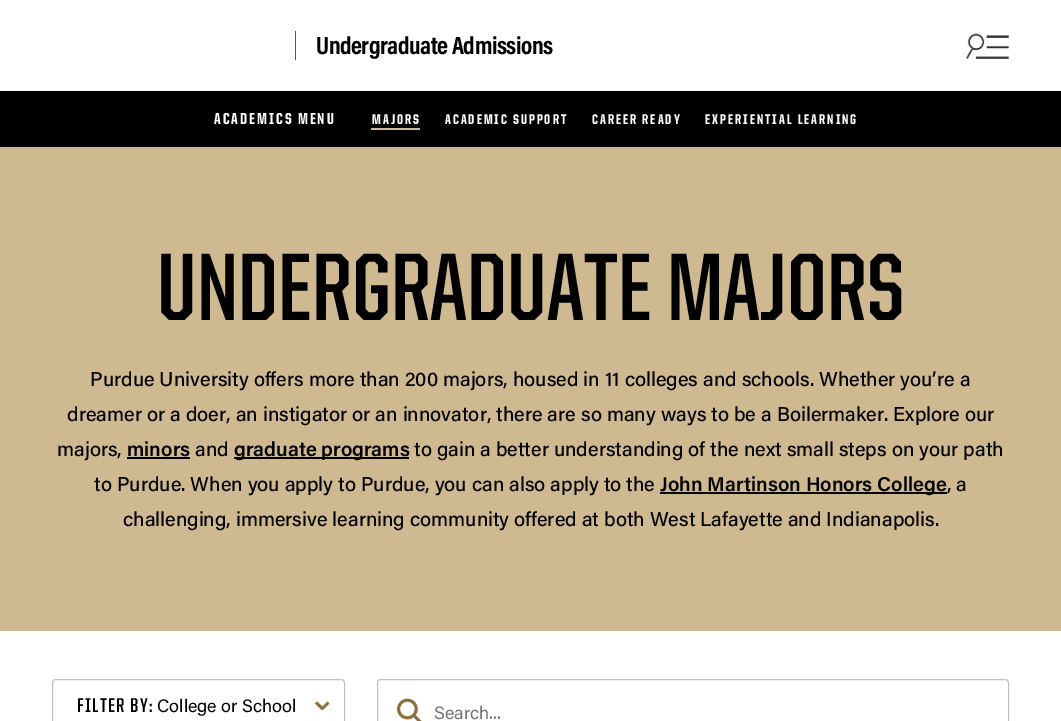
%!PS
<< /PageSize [1061 721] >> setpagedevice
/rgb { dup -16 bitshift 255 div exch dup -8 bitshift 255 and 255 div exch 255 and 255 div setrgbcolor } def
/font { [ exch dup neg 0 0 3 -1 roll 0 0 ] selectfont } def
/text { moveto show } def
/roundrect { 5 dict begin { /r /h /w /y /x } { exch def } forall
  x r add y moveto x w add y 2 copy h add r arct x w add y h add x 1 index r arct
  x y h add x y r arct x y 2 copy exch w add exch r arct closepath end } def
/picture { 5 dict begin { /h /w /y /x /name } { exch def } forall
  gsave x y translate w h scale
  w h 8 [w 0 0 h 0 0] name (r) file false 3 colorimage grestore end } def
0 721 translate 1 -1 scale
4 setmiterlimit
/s1 { /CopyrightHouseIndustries-SemiBold 96 font 16#000000 rgb } def
/s2 { /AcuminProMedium-Medium 20 font 16#000000 rgb } def
/s3 { /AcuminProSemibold-SemiBold 20 font 16#000000 rgb } def
/s4 { /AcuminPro-Regular 18 font 16#000000 rgb } def
/s5 { /AcuminPro-Regular 18 font 16#757575 rgb } def
16#FFFFFF rgb
0 0 1061 721 rectfill
16#555960 rgb
295 31 1 29 rectfill
/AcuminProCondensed-Bold 25 font
16#000000 rgb
316 54 moveto -0.5 0 (Undergraduate Admissions) ashow
(pic1.raw) 966 33 43 26 picture
0 91 1061 56 rectfill
/CopyrightHouseIndustries-Bold 16 font
16#FFFFFF rgb
214 124 moveto 2 0 (ACADEMICS MENU) ashow
/CopyrightHouseIndustries-Bold 14 font
372 124 moveto 2 0 (MAJORS) ashow
16#CFB991 rgb
371 128 49 2 rectfill
16#FFFFFF rgb
445 124 moveto 2 0 (ACADEMIC SUPPORT) ashow
592 124 moveto 2 0 (CAREER READY) ashow
705 124 moveto 2 0 (EXPERIENTIAL LEARNING) ashow
16#CFB991 rgb
0 147 1061 484 rectfill
s1
(UNDERGRADUATE MAJORS) 157 320 text
s2
(Purdue University offers more than 200 majors, housed in 11 colleges and schools. Whether you’re a) 90 386 text
(dreamer or a doer, an instigator or an innovator, there are so many ways to be a Boilermaker. Explore our) 67 421 text
(majors,) 57 456 text
s3
(minors) 127 456 text
127 457 63 2 rectfill
s2
(and) 195 456 text
234 457 175 2 rectfill
s3
(graduate programs) 234 456 text
s2
(to gain a better understanding of the next small steps on your path) 414 456 text
(to Purdue. When you apply to Purdue, you can also apply to the) 94 491 text
660 492 287 2 rectfill
s3
(John Martinson Honors College) 660 491 text
s2
(, a) 947 491 text
(challenging, immersive learning community offered at both West Lafayette and Indianapolis.) 123 526 text
16#C4BFC0 rgb
52.5 679.5 292 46 3.5 roundrect stroke
/CopyrightHouseIndustries-SemiBold 20 font
16#000000 rgb
77 712 moveto 1.25 0 (FILTER BY:) ashow
s4
(College or School) 157 712 text
16#8E6F3E rgb
321 708 moveto 327.5 701.5 lineto 329.5 703.5 lineto 323 710 lineto closepath fill
315 703.5 moveto 317 701.5 lineto 324 708 lineto 321.5 710 lineto closepath fill
16#C4BFC0 rgb
377.5 679.5 631 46 3.5 roundrect stroke
(pic2.raw) 397 698 25 23 picture
s5
(Search...) 434 719 text
showpage
